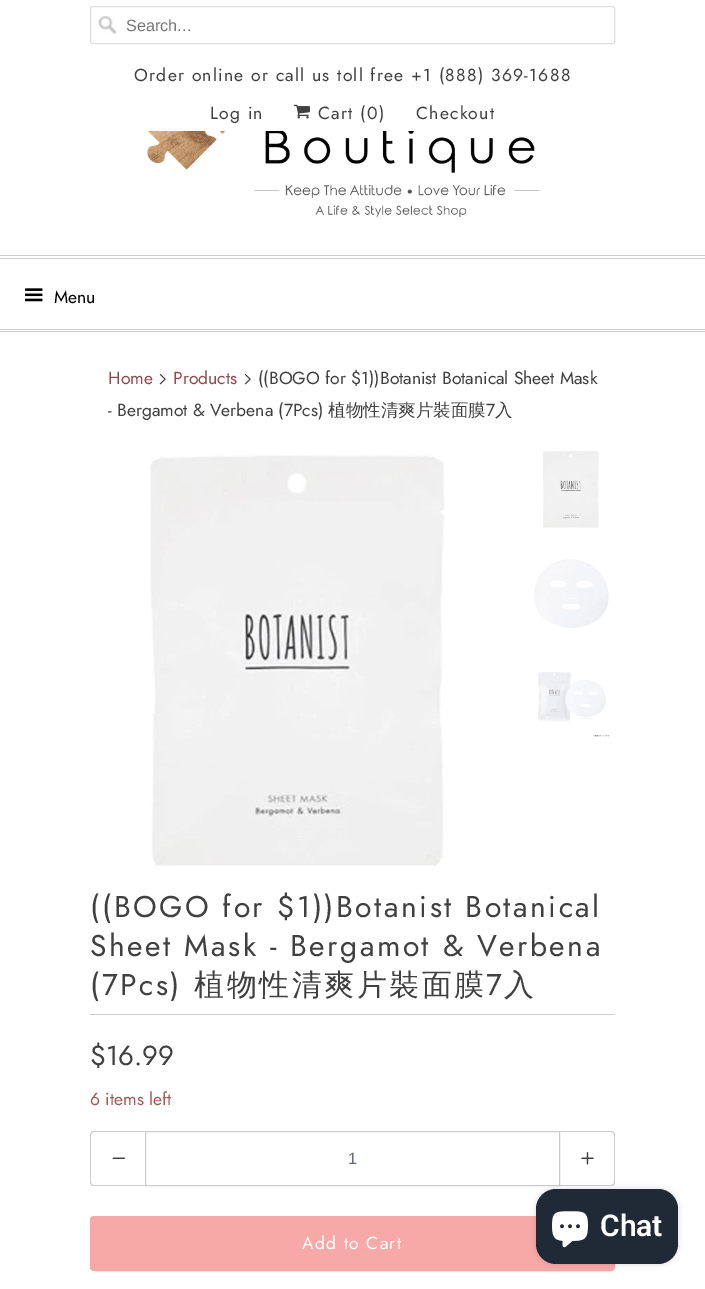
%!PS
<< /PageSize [705 1289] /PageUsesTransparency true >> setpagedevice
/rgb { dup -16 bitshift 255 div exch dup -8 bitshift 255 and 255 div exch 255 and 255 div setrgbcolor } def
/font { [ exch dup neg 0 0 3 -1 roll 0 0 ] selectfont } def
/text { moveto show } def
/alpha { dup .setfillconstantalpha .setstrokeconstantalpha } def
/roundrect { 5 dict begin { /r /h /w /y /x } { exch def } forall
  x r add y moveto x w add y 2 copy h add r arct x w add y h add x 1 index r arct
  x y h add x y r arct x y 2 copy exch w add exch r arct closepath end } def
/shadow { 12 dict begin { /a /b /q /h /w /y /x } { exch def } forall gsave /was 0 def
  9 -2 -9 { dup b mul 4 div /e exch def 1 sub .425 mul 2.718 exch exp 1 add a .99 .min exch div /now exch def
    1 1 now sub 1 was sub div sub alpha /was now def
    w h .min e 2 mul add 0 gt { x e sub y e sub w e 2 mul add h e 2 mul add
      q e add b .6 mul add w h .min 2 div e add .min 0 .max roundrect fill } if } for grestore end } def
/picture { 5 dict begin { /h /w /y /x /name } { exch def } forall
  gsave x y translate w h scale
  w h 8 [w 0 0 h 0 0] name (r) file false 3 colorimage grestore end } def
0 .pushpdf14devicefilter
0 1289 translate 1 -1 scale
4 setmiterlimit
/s1 { /LiberationSans-Regular 16.25 font 16#757575 rgb } def
/s2 { /Jost-Regular 17.5 font 16#000000 rgb } def
/s3 { /Jost-Regular 17.5 font 16#924A4D rgb } def
/s4 { /Jost-Regular 17.5 font 16#404040 rgb } def
/s5 { /WenQuanYiZenHei-Medium 17.5 font 16#404040 rgb } def
/s6 { /Jost-Regular 27.5 font 16#404040 rgb } def
/s7 { /Jost-Regular 17.5 font 16#A65754 rgb } def
/s8 { /LiberationSans-Regular 16.25 font 16#5F6A7D rgb } def
/s9 { /Roboto-SemiBold 30 font 16#FFFFFF rgb } def
16#FFFFFF rgb
0 0 705 1289 rectfill
(pic1.raw) 98 16 19 18 picture
16#DFDFDF rgb
90.5 6.5 524 37 2 roundrect stroke
s1
(Search...) 126 31 text
/Jost-Regular 17.5 font
16#404040 rgb
134 81 moveto 1.25 0 (Order online or call us toll free +1 \(888\) 369-1688) ashow
210 119 moveto 1.25 0 (Log in) ashow
(pic2.raw) 293 104 17 15 picture
318 119 moveto 1.25 0 (Cart \(0\)) ashow
416 119 moveto 1.25 0 (Checkout) ashow
(pic3.raw) 147 131 393 87 picture
16#CDCDCD rgb
0 255 705 1 rectfill
0 258 705 1 rectfill
0 329 705 1 rectfill
0 331 705 1 rectfill
(pic4.raw) 25 288 18 14 picture
s2
(Menu) 54 303 text
s3
(Home) 108 384 text
(pic5.raw) 159 373 7 12 picture
(Products) 173 384 text
(pic5.raw) 244 373 7 12 picture
s4
(\(\(BOGO for $1\)\)Botanist Botanical Sheet Mask) 258 384 text
(- Bergamot & Verbena \(7Pcs\)) 108 416 text
s5
(植物性清爽片裝面膜) 328 416 text
s4
(7) 486 416 text
s5
(入) 495 416 text
(pic6.raw) 150 455 295 412 picture
(pic7.raw) 543 451 56 77 picture
(pic8.raw) 534 559 75 69 picture
(pic9.raw) 538 672 71 65 picture
16#CDCDCD rgb
90 1014 525 1 rectfill
/Jost-Regular 30 font
16#404040 rgb
90 917 moveto 2.5 0 (\(\(BOGO for $1\)\)Botanist Botanical) ashow
90 956 moveto 2.5 0 (Sheet Mask - Bergamot & Verbena) ashow
90 995 moveto 2.5 0 (\(7Pcs\)) ashow
/WenQuanYiZenHei-Medium 30 font
194 995 moveto 2.5 0 (植物性清爽片裝面膜) ashow
/Jost-Regular 30 font
486 995 moveto 2.5 0 (7) ashow
/WenQuanYiZenHei-Medium 30 font
504 995 moveto 2.5 0 (入) ashow
s6
($16.99) 90 1065 text
s7
(6 items left) 90 1105 text
16#CDCDCD rgb
94 1131 moveto 145 1131 lineto 145 1186 lineto 94 1186 lineto 92 1186 90 1185 90 1182 curveto 90 1135 lineto 90 1133 92 1131 94 1131 curveto closepath 94 1132 moveto 145 1132 lineto 145 1185 lineto 94 1185 lineto 92 1185 91 1184 91 1182 curveto 91 1135 lineto 91 1134 92 1132 94 1132 curveto closepath eofill
(pic10.raw) 112 1157 13 2 picture
145.5 1131.5 414 54 rectstroke
s8
(1) 348 1164 text
16#CDCDCD rgb
560 1131 moveto 611 1131 lineto 613 1131 615 1133 615 1135 curveto 615 1182 lineto 615 1185 613 1186 611 1186 curveto 560 1186 lineto closepath 560 1132 moveto 611 1132 lineto 613 1132 614 1134 614 1135 curveto 614 1182 lineto 614 1184 613 1185 611 1185 curveto 560 1185 lineto closepath eofill
(pic11.raw) 581 1152 13 13 picture
16#F7A9A7 rgb
90.5 1216.5 524 54 3.5 roundrect gsave fill grestore
stroke
/Jost-Regular 17.5 font
16#FFFFFF rgb
302 1249 moveto 1.25 0 (Add to Cart) ashow
16#000000 rgb
536 1189 142 75 20 3 0.15 shadow
16#202A36 rgb
536 1189 142 75 20 roundrect fill
(pic12.raw) 552 1211 36 37 picture
s9
(Chat) 600 1236 text
.poppdf14devicefilter showpage
